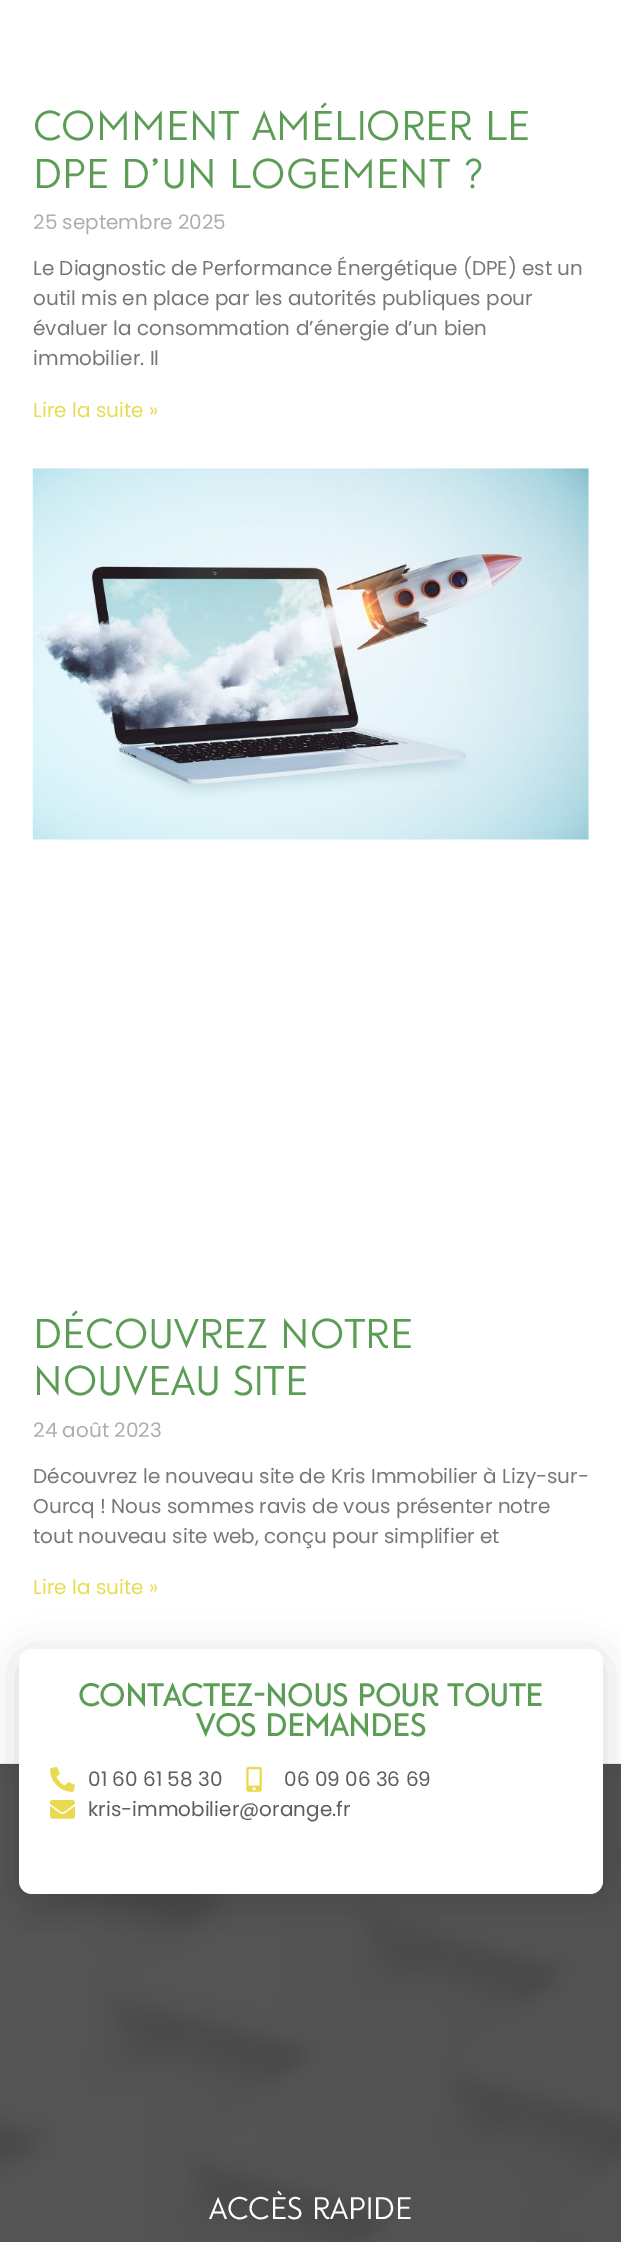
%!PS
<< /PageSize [621 2242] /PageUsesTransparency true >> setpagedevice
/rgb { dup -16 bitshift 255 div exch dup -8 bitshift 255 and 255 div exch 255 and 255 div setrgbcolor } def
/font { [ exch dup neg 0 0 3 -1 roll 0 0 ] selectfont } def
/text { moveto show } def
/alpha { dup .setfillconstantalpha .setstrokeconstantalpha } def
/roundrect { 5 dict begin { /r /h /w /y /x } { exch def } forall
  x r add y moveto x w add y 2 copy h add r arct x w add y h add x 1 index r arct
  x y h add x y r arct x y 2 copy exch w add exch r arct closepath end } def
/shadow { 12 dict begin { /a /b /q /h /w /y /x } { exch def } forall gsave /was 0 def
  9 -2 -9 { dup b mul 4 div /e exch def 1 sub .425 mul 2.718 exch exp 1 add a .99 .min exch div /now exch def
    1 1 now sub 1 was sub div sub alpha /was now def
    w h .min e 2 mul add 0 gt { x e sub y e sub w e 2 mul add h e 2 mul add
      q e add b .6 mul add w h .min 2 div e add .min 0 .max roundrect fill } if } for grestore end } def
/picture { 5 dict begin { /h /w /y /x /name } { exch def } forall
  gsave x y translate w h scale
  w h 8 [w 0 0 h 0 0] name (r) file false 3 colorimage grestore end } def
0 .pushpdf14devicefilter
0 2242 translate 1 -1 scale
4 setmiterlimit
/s1 { /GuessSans-Regular 40 font 16#5C9D56 rgb } def
/s2 { /Poppins-Regular 20 font 16#ADADAD rgb } def
/s3 { /Poppins-Regular 20 font 16#777777 rgb } def
/s4 { /Poppins-Regular 20 font 16#E8DB51 rgb } def
/s5 { /GuessSans-Bold 30 font 16#5C9D56 rgb } def
/s6 { /Poppins-Regular 20 font 16#5D5D5D rgb } def
/s7 { /GuessSans-Regular 30 font 16#FFFFFF rgb } def
16#FFFFFF rgb
0 0 621 2242 rectfill
s1
(Comment améliorer le) 33 140 text
(DPE d’un logement ?) 33 188 text
s2
(25 septembre 2025) 33 229 text
s3
(Le Diagnostic de Performance Énergétique \(DPE\) est un) 33 275 text
(outil mis en place par les autorités publiques pour) 33 305 text
(évaluer la consommation d’énergie d’un bien) 33 335 text
(immobilier. Il) 33 365 text
s4
(Lire la suite ») 33 417 text
(pic1.raw) 32 468 557 372 picture
s1
(Découvrez notre) 33 1348 text
(nouveau site) 33 1395 text
s2
(24 août 2023) 33 1437 text
s3
(Découvrez le nouveau site de Kris Immobilier à Lizy-sur-) 33 1483 text
(Ourcq ! Nous sommes ravis de vous présenter notre) 33 1513 text
(tout nouveau site web, conçu pour simplifier et) 33 1543 text
s4
(Lire la suite ») 33 1594 text
(pic5.raw) 0 1764 621 478 picture
16#EFEFEF rgb
0 1763 621 1 rectfill
16#000000 rgb
19 1655 584 245 13 19 0.15 shadow
16#FFFFFF rgb
19 1649 584 245 13 roundrect fill
s5
(Contactez-nous pour toute) 78 1706 text
(vos demandes) 196 1736 text
(pic2.raw) 50 1766 25 26 picture
s6
(01 60 61 58 30) 88 1786 text
(pic3.raw) 246 1766 16 26 picture
(06 09 06 36 69) 284 1786 text
(pic4.raw) 50 1800 25 19 picture
(kris-immobilier@orange.fr) 88 1816 text
s7
(Accès rapide) 209 2219 text
.poppdf14devicefilter showpage
